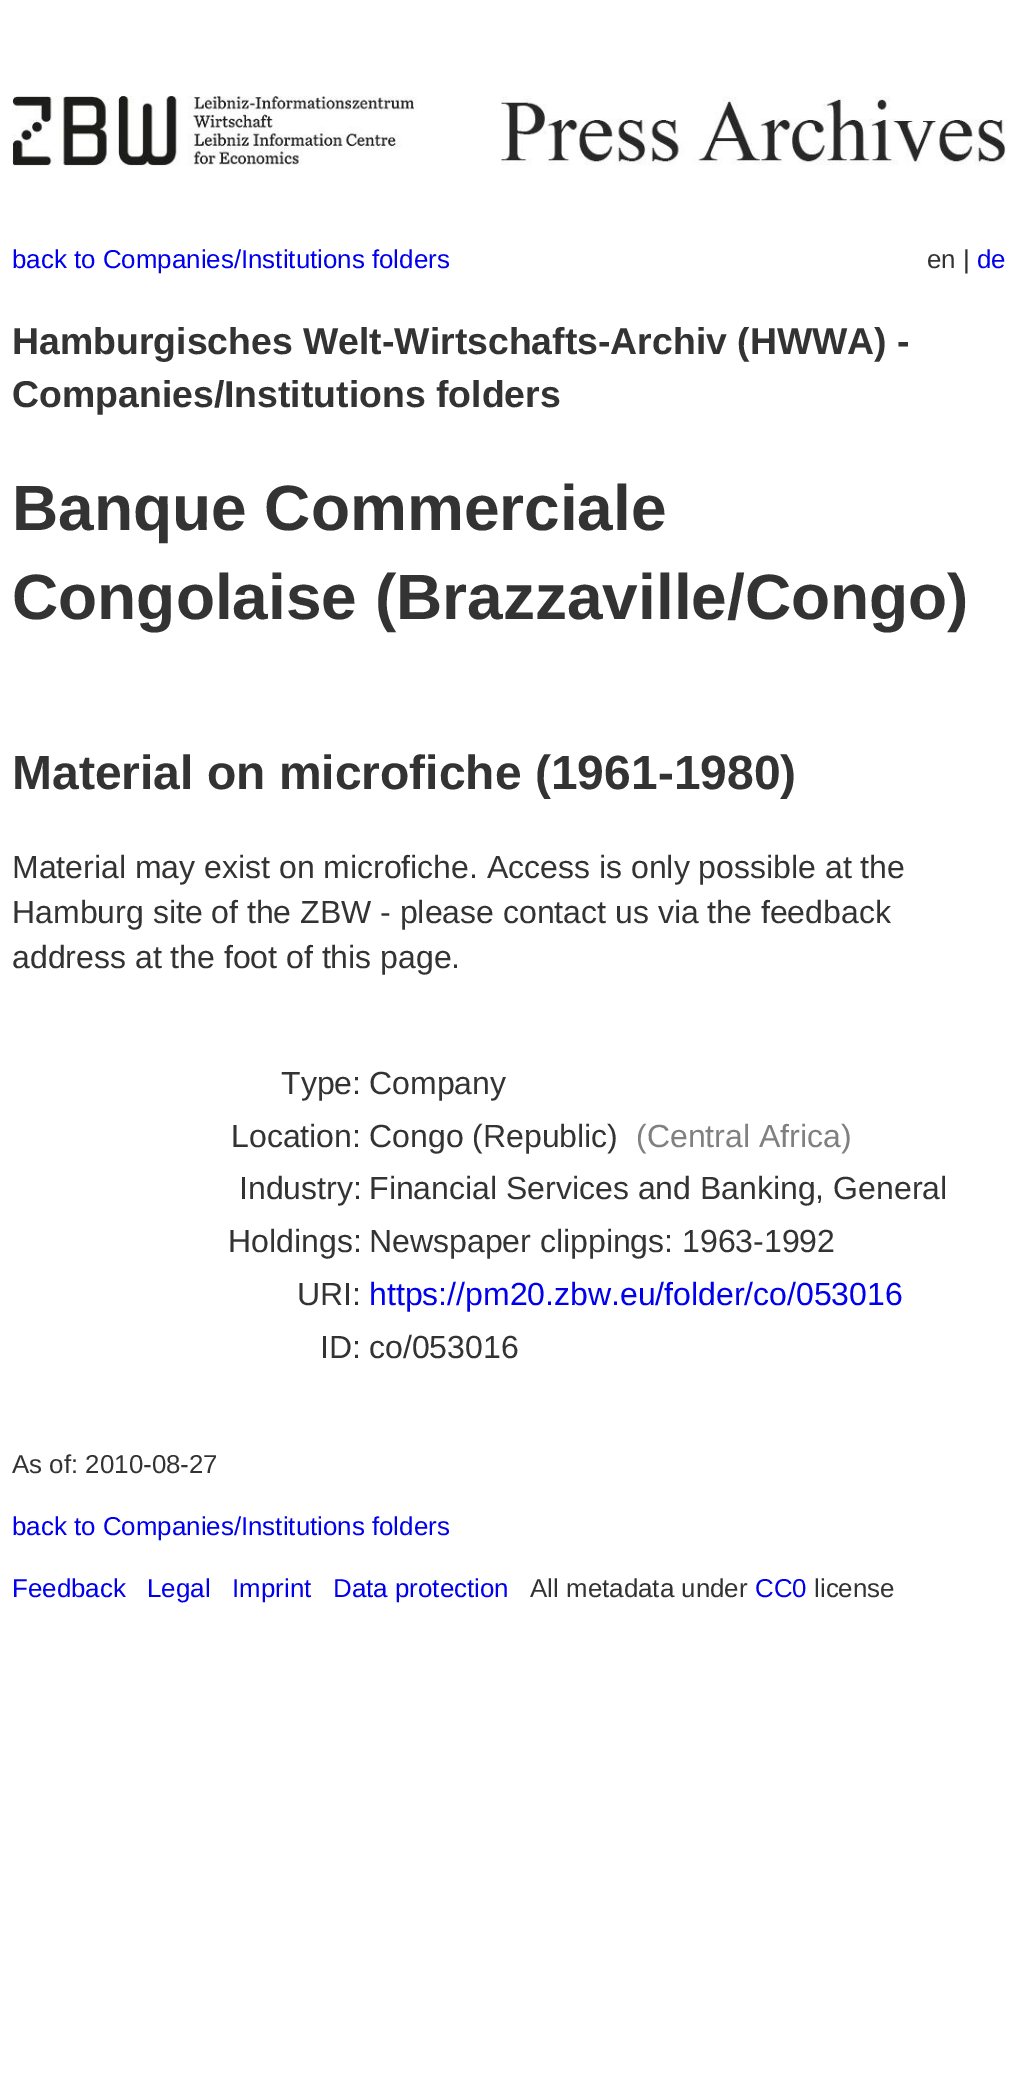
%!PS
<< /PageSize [1018 2088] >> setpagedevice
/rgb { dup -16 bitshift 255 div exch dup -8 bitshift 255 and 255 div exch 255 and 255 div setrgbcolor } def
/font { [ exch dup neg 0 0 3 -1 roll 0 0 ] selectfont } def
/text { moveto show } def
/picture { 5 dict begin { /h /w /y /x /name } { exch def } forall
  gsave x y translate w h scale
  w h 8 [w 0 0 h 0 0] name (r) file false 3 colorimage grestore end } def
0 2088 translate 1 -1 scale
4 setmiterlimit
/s1 { /LiberationSans-Regular 25.9 font 16#0000EE rgb } def
/s2 { /LiberationSans-Regular 25.9 font 16#333333 rgb } def
/s3 { /LiberationSans-Bold 37.4 font 16#333333 rgb } def
/s4 { /LiberationSans-Bold 64 font 16#333333 rgb } def
/s5 { /LiberationSans-Bold 48 font 16#333333 rgb } def
/s6 { /LiberationSans-Regular 32 font 16#333333 rgb } def
/s7 { /LiberationSans-Regular 32 font 16#808080 rgb } def
/s8 { /LiberationSans-Regular 32 font 16#0000EE rgb } def
16#FFFFFF rgb
0 0 1018 2088 rectfill
(pic1.raw) 12 96 994 70 picture
s1
(back to Companies/Institutions folders) 12 268 text
s2
(en |) 927 268 text
s1
(de) 977 268 text
s3
(Hamburgisches Welt-Wirtschafts-Archiv \(HWWA\) -) 12 354 text
(Companies/Institutions folders) 12 407 text
s4
(Banque Commerciale) 12 530 text
(Congolaise \(Brazzaville/Congo\)) 12 619 text
s5
(Material on microfiche \(1961-1980\)) 12 789 text
s6
(Material may exist on microfiche. Access is only possible at the) 12 878 text
(Hamburg site of the ZBW - please contact us via the feedback) 12 923 text
(address at the foot of this page.) 12 968 text
(Type:) 281 1094 text
(Company) 369 1094 text
(Location:) 231 1147 text
(Congo \(Republic\)) 369 1147 text
s7
(\(Central Africa\)) 636 1147 text
s6
(Industry:) 239 1199 text
(Financial Services and Banking, General) 369 1199 text
(Holdings:) 228 1252 text
(Newspaper clippings: 1963-1992) 369 1252 text
(URI:) 297 1305 text
s8
(https://pm20.zbw.eu/folder/co/053016) 369 1305 text
s6
(ID:) 320 1358 text
(co/053016) 369 1358 text
s2
(As of: 2010-08-27) 12 1473 text
s1
(back to Companies/Institutions folders) 12 1535 text
(Feedback) 12 1597 text
(Legal) 147 1597 text
(Imprint) 232 1597 text
(Data protection) 333 1597 text
s2
(All metadata under) 530 1597 text
s1
(CC0) 755 1597 text
s2
(license) 814 1597 text
showpage
